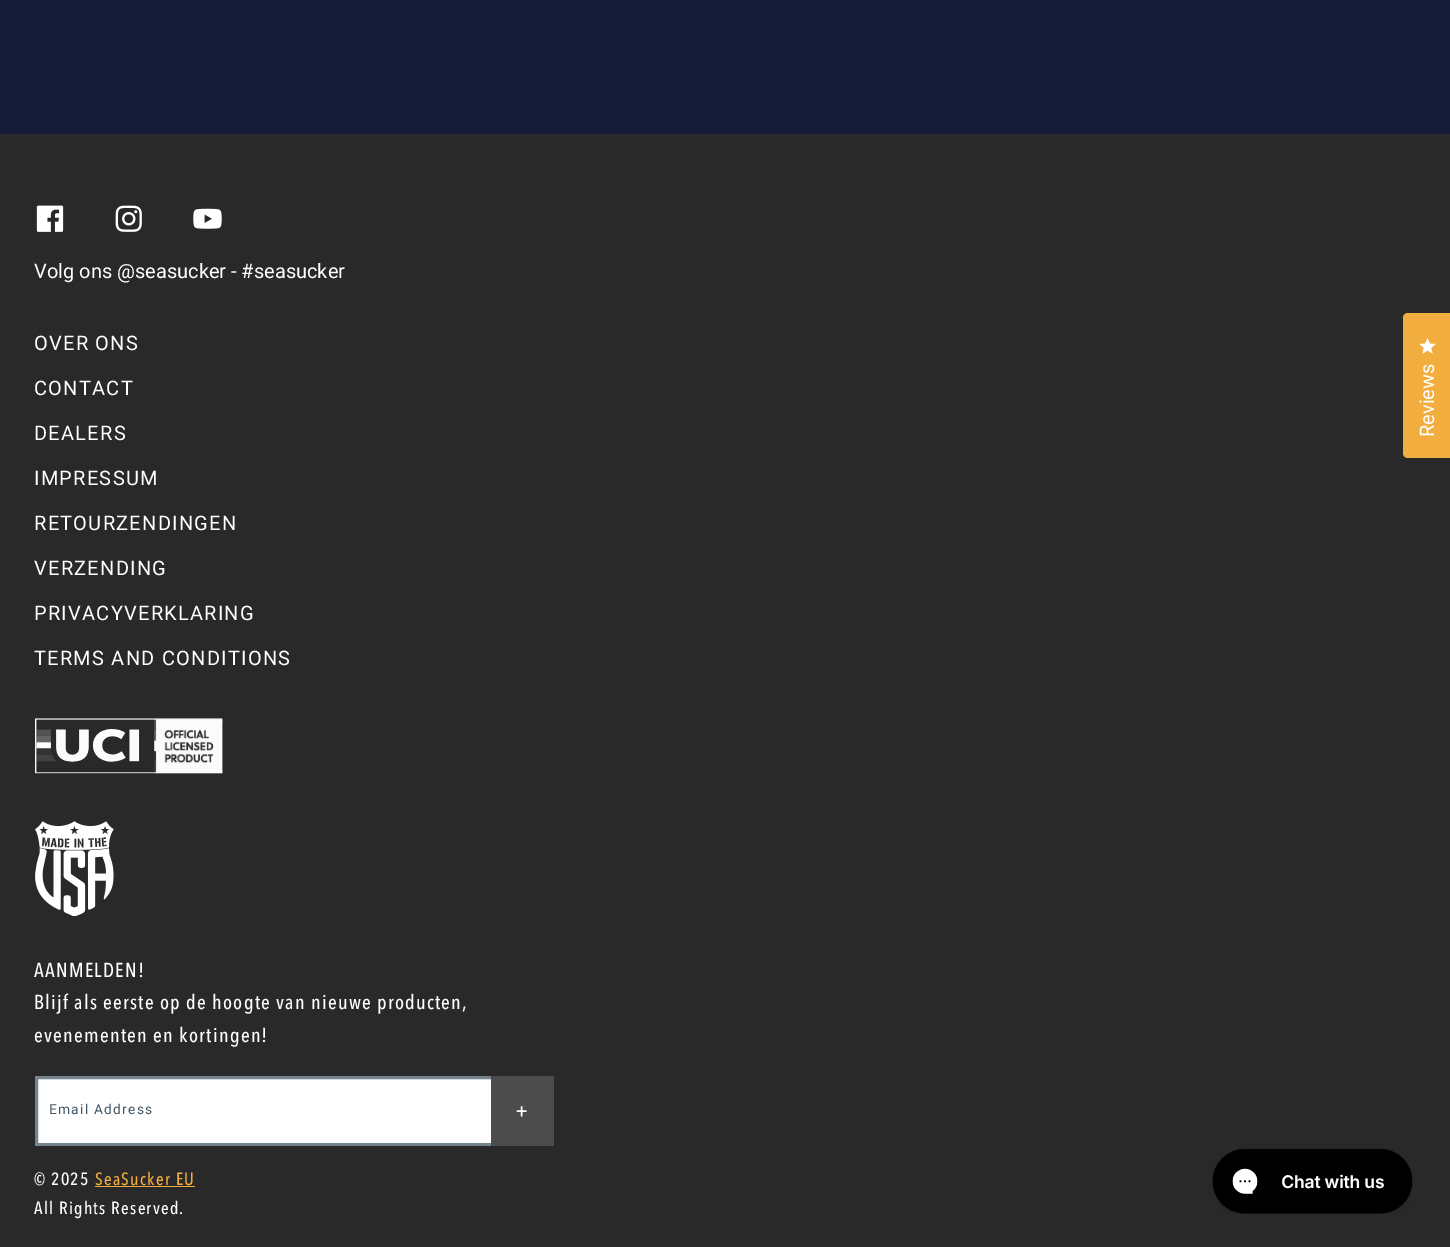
%!PS
<< /PageSize [1450 1247] /PageUsesTransparency true >> setpagedevice
/rgb { dup -16 bitshift 255 div exch dup -8 bitshift 255 and 255 div exch 255 and 255 div setrgbcolor } def
/font { [ exch dup neg 0 0 3 -1 roll 0 0 ] selectfont } def
/text { moveto show } def
/alpha { dup .setfillconstantalpha .setstrokeconstantalpha } def
/picture { 5 dict begin { /h /w /y /x /name } { exch def } forall
  gsave x y translate w h scale
  w h 8 [w 0 0 h 0 0] name (r) file false 3 colorimage grestore end } def
0 .pushpdf14devicefilter
0 1247 translate 1 -1 scale
4 setmiterlimit
/s1 { /Roboto-Regular 20 font 16#FFFFFF rgb } def
16#161C37 rgb
0 0 1450 1247 rectfill
16#2A2929 rgb
0 134 1450 1113 rectfill
(pic1.raw) 36 205 28 27 picture
(pic2.raw) 115 205 27 27 picture
(pic3.raw) 193 208 29 21 picture
s1
(Volg ons @seasucker - #seasucker) 34 278 text
34 350 moveto 1.25 0 (OVER ONS) ashow
34 395 moveto 1.25 0 (CONTACT) ashow
34 440 moveto 1.25 0 (DEALERS) ashow
34 485 moveto 1.25 0 (IMPRESSUM) ashow
34 530 moveto 1.25 0 (RETOURZENDINGEN) ashow
34 575 moveto 1.25 0 (VERZENDING) ashow
34 620 moveto 1.25 0 (PRIVACYVERKLARING) ashow
34 665 moveto 1.25 0 (TERMS AND CONDITIONS) ashow
(pic4.raw) 35 718 188 56 picture
(pic5.raw) 35 821 79 95 picture
/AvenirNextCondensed-Medium 20 font
34 977 moveto 1.25 0 (AANMELDEN!) ashow
34 1009 moveto 1.25 0 (Blijf als eerste op de hoogte van nieuwe producten,) ashow
34 1042 moveto 1.25 0 (evenementen en kortingen!) ashow
35 1076 456 70 rectfill
0.55 alpha
16#011F31 rgb
3 setlinewidth
36.5 1077.5 456 67 rectstroke
/Roboto-Regular 13.75 font
1 alpha
16#415765 rgb
49 1114 moveto 1.25 0 (Email Address) ashow
16#4C4C4C rgb
491 1076 63 70 rectfill
/Roboto-Regular 20 font
16#FFFFFF rgb
516 1118 moveto 1.25 0 (+) ashow
/AvenirNextCondensed-Medium 17.5 font
34 1185 moveto 1.25 0 (© 2025) ashow
16#F2AD3F rgb
95 1185 moveto 1.25 0 (SeaSucker EU) ashow
95 1186 100 1 rectfill
16#FFFFFF rgb
34 1214 moveto 1.25 0 (All Rights Reserved.) ashow
16#F2AD3F rgb
1408 313 moveto 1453 313 lineto 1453 458 lineto 1408 458 lineto 1405 458 1403 456 1403 453 curveto 1403 318 lineto 1403 315 1405 313 1408 313 curveto closepath fill
(pic6.raw) 1419 338 17 16 picture
/Roboto-Regular 20 font
16#FFFFFF rgb
gsave 1434 437 translate -89.9 rotate 0 0 moveto (Reviews) show grestore
(pic7.raw) 1212 1149 201 65 picture
.poppdf14devicefilter showpage
